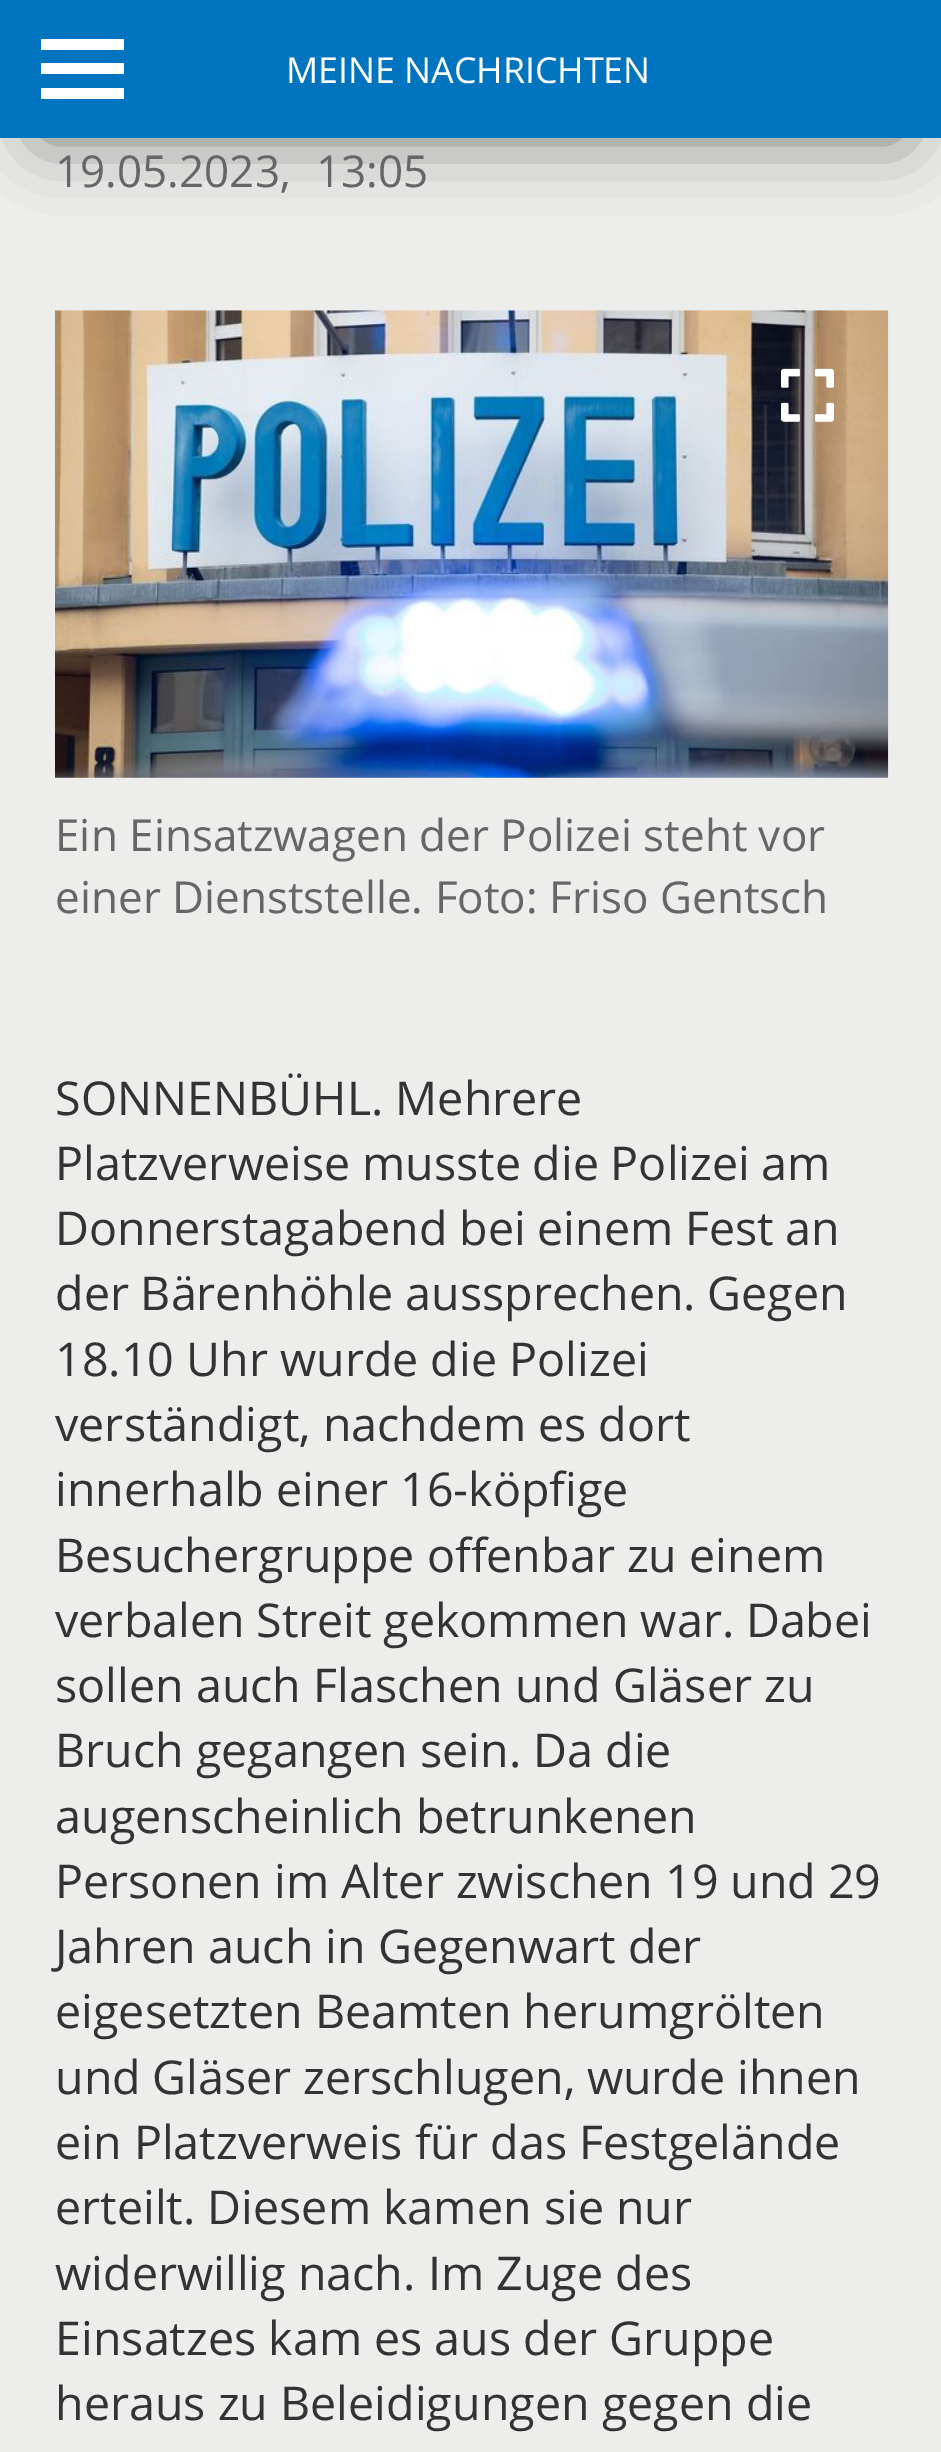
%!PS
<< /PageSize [941 2452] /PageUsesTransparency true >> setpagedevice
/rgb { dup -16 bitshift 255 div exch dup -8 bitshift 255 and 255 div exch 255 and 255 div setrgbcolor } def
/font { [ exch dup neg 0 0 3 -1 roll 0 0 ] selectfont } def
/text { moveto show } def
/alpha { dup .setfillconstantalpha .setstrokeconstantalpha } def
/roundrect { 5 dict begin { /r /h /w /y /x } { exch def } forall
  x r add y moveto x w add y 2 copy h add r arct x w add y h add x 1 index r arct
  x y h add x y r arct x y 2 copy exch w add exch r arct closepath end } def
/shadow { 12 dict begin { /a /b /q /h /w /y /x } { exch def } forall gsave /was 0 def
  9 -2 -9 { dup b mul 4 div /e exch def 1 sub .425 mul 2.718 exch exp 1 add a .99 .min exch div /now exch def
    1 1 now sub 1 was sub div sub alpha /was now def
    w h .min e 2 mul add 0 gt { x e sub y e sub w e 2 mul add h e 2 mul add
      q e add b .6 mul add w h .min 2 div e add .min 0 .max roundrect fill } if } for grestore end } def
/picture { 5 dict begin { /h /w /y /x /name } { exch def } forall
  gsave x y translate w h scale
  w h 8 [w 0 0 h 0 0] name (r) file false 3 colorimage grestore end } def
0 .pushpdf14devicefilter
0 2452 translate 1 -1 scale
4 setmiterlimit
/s1 { /OpenSans-Regular 35.75 font 16#FFFFFF rgb } def
/s2 { /OpenSans-Regular 44 font 16#666666 rgb } def
/s3 { /OpenSans-Regular 46.6 font 16#333333 rgb } def
16#EDEDEC rgb
0 0 941 2452 rectfill
16#000000 rgb
41 83 861 55 0 34.5 0.5 shadow
16#0074BE rgb
0 0 941 138 rectfill
16#FFFFFF rgb
41 63 83 11 rectfill
41 39 83 11 rectfill
41 88 83 11 rectfill
s1
(MEINE NACHRICHTEN) 286 83 text
s2
(19.05.2023,) 55 187 text
(13:05) 316 187 text
(pic1.raw) 55 310 834 468 picture
(pic2.raw) 781 368 53 54 picture
(Ein Einsatzwagen der Polizei steht vor) 55 851 text
(einer Dienststelle. Foto: Friso Gentsch) 55 913 text
s3
(SONNENBÜHL. Mehrere) 55 1115 text
55 1180 moveto -0.5 0 32 (Platzverweise musste die Polizei am) widthshow
55 1245 moveto -0.5 0 32 (Donnerstagabend bei einem Fest an) widthshow
55 1310 moveto -0.5 0 32 (der Bärenhöhle aussprechen. Gegen) widthshow
(18.10 Uhr wurde die Polizei) 55 1376 text
(verständigt, nachdem es dort) 55 1441 text
(innerhalb einer 16-köpfige) 55 1506 text
(Besuchergruppe offenbar zu einem) 55 1572 text
55 1637 moveto -0.5 0 32 (verbalen Streit gekommen war. Dabei) widthshow
(sollen auch Flaschen und Gläser zu) 55 1702 text
(Bruch gegangen sein. Da die) 55 1767 text
(augenscheinlich betrunkenen) 55 1833 text
55 1898 moveto -0.25 0 32 (Personen im Alter zwischen 19 und 29) widthshow
(Jahren auch in Gegenwart der) 55 1963 text
(eigesetzten Beamten herumgrölten) 55 2028 text
55 2094 moveto -0.5 0 32 (und Gläser zerschlugen, wurde ihnen) widthshow
(ein Platzverweis für das Festgelände) 55 2159 text
(erteilt. Diesem kamen sie nur) 55 2224 text
(widerwillig nach. Im Zuge des) 55 2290 text
(Einsatzes kam es aus der Gruppe) 55 2355 text
(heraus zu Beleidigungen gegen die) 55 2420 text
.poppdf14devicefilter showpage
